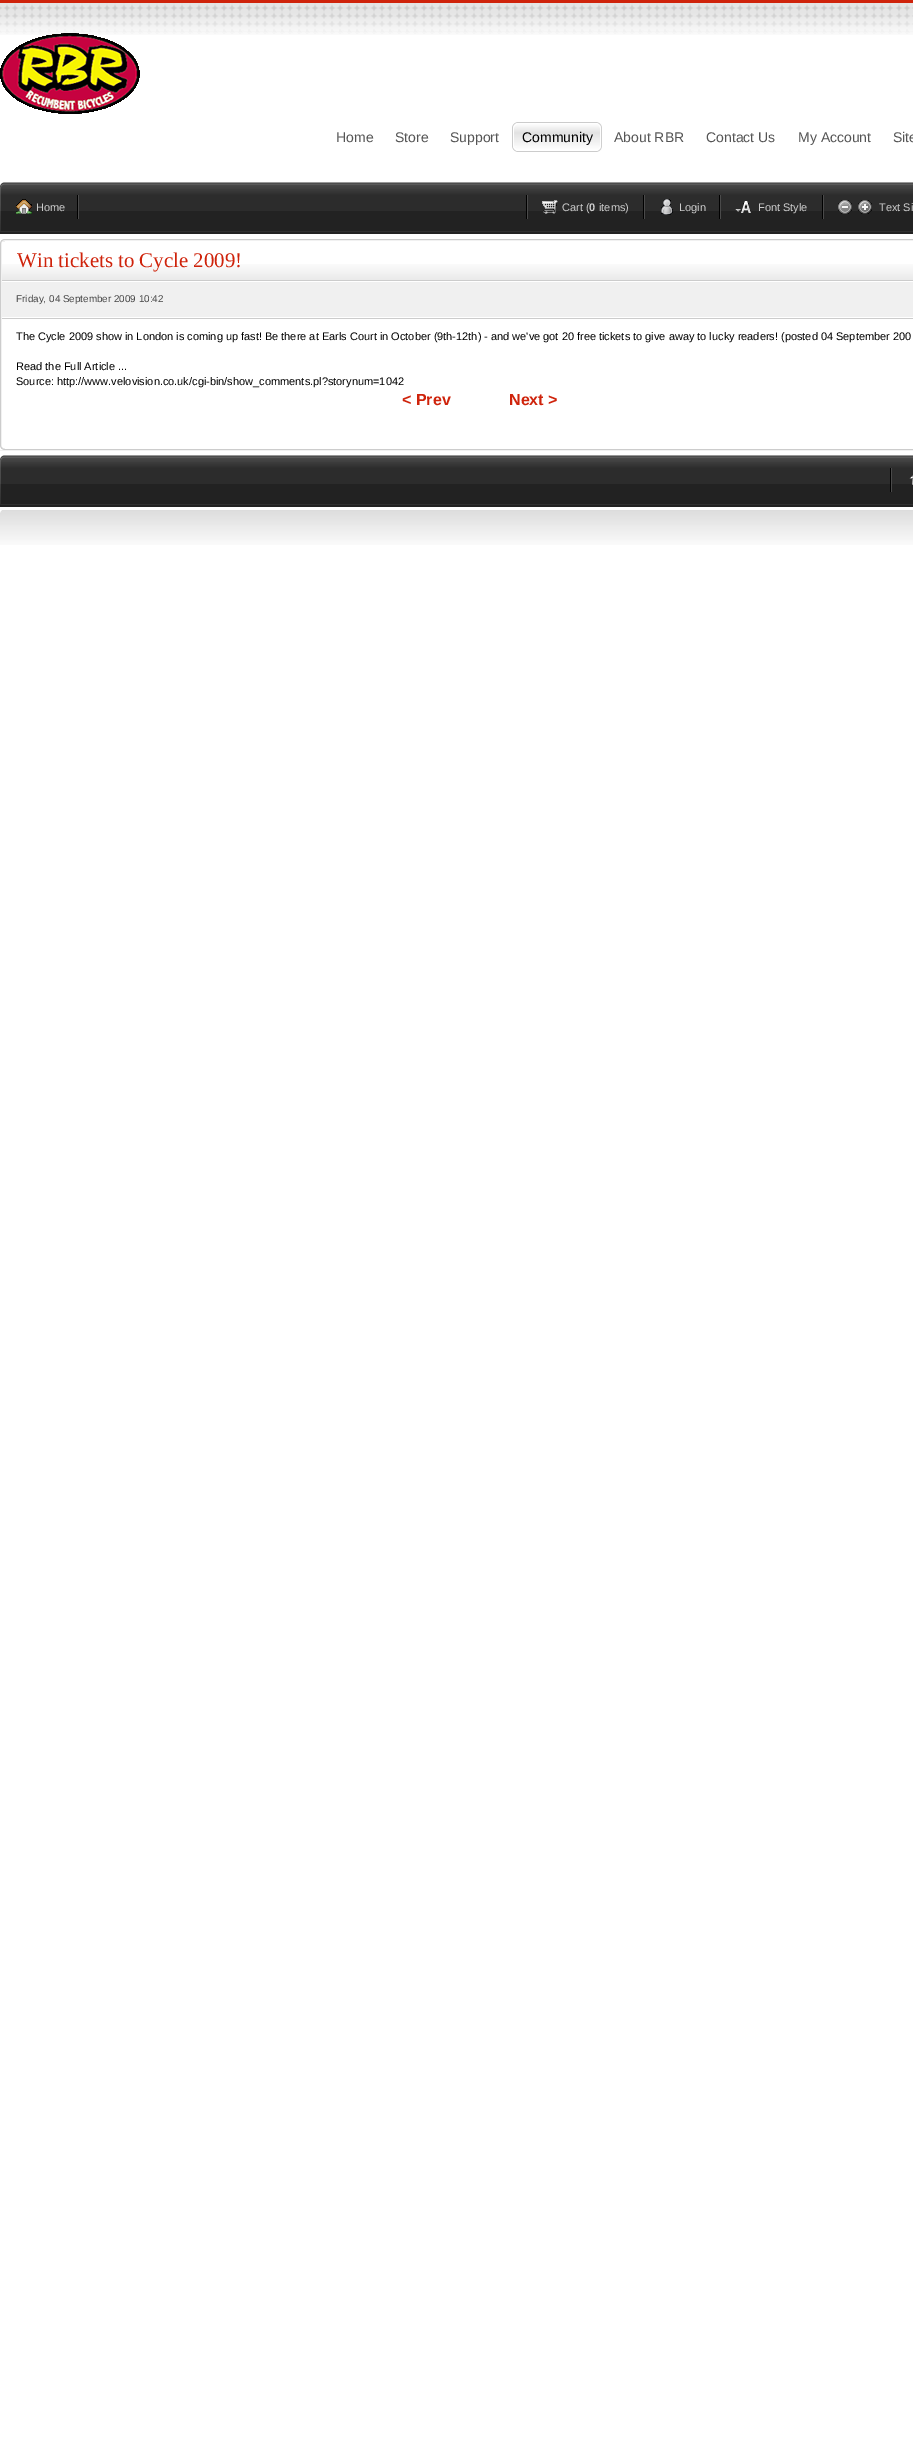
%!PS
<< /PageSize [913 2463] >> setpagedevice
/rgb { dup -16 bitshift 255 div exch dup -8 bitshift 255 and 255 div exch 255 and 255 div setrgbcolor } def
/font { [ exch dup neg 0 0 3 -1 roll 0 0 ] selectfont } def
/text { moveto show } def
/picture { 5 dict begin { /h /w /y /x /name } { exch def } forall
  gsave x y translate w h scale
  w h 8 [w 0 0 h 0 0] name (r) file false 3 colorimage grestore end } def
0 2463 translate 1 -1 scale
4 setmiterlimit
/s1 { /LiberationSans-Regular 14 font 16#555555 rgb } def
/s2 { /LiberationSans-Regular 14 font 16#000000 rgb } def
/s3 { /LiberationSans-Regular 11 font 16#CCCCCC rgb } def
/s4 { /LiberationSans-Bold 11 font 16#CCCCCC rgb } def
/s5 { /LiberationSerif-Regular 20.9 font 16#CF230B rgb } def
/s6 { /LiberationSans-Regular 9.9 font 16#444444 rgb } def
/s7 { /LiberationSans-Regular 11 font 16#000000 rgb } def
/s8 { /LiberationSans-Bold 16 font 16#CF230B rgb } def
16#FFFFFF rgb
0 0 913 2463 rectfill
(pic1.raw) 0 3 913 32 picture
16#CF230B rgb
0 0 913 3 rectfill
(pic2.raw) 0 33 140 81 picture
s1
(Home) 336 142 text
(Store) 395 142 text
(Support) 450 142 text
(pic3.raw) 517 122 85 30 picture
(pic4.raw) 512 122 5 30 picture
s2
(Community) 522 142 text
s1
(About RBR) 614 142 text
(Contact Us) 706 142 text
(My Account) 798 142 text
(Site) 893 142 text
(pic5.raw) 5 182 908 52 picture
(pic6.raw) 0 182 5 52 picture
(pic7.raw) 77 195 2 24 picture
(pic8.raw) 16 199 16 15 picture
s3
(Home) 36 211 text
(pic7.raw) 526 195 2 24 picture
(pic9.raw) 542 200 16 14 picture
(Cart \() 562 211 text
s4
(0) 589 211 text
s3
(items\)) 599 211 text
(pic7.raw) 643 195 2 24 picture
(pic10.raw) 661 199 12 16 picture
(Login) 679 211 text
(pic7.raw) 719 195 2 24 picture
(pic11.raw) 735 201 16 12 picture
(Font Style) 758 211 text
(pic7.raw) 822 195 2 24 picture
(pic12.raw) 838 200 14 14 picture
(pic13.raw) 858 200 14 14 picture
(Text Si) 879 211 text
0.5 239.5 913 210 rectstroke
(pic14.raw) 0 239 5 5 picture
(pic15.raw) 2 264 911 17 picture
s5
(Win tickets to Cycle 2009!) 17 267 text
16#CCCCCC rgb
2 318 911 1 rectfill
16#F0F0F0 rgb
2 282 911 35 rectfill
s6
(Friday, 04 September 2009 10:42) 16 302 text
s7
(The Cycle 2009 show in London is coming up fast! Be there at Earls Court in October \(9th-12th\) - and we've got 20 free tickets to give away to lucky readers! \(posted 04 September 200) 16 340 text
(Read the Full Article ...) 16 370 text
(Source: http://www.velovision.co.uk/cgi-bin/show_comments.pl?storynum=1042) 16 385 text
s8
(< Prev) 402 405 text
(Next >) 509 405 text
(pic16.raw) 0 445 5 5 picture
(pic5.raw) 5 455 908 52 picture
(pic6.raw) 0 455 5 52 picture
(pic7.raw) 890 468 2 24 picture
(pic17.raw) 909 475 4 10 picture
(pic18.raw) 0 510 913 35 picture
(pic19.raw) 0 510 2 3 picture
showpage
